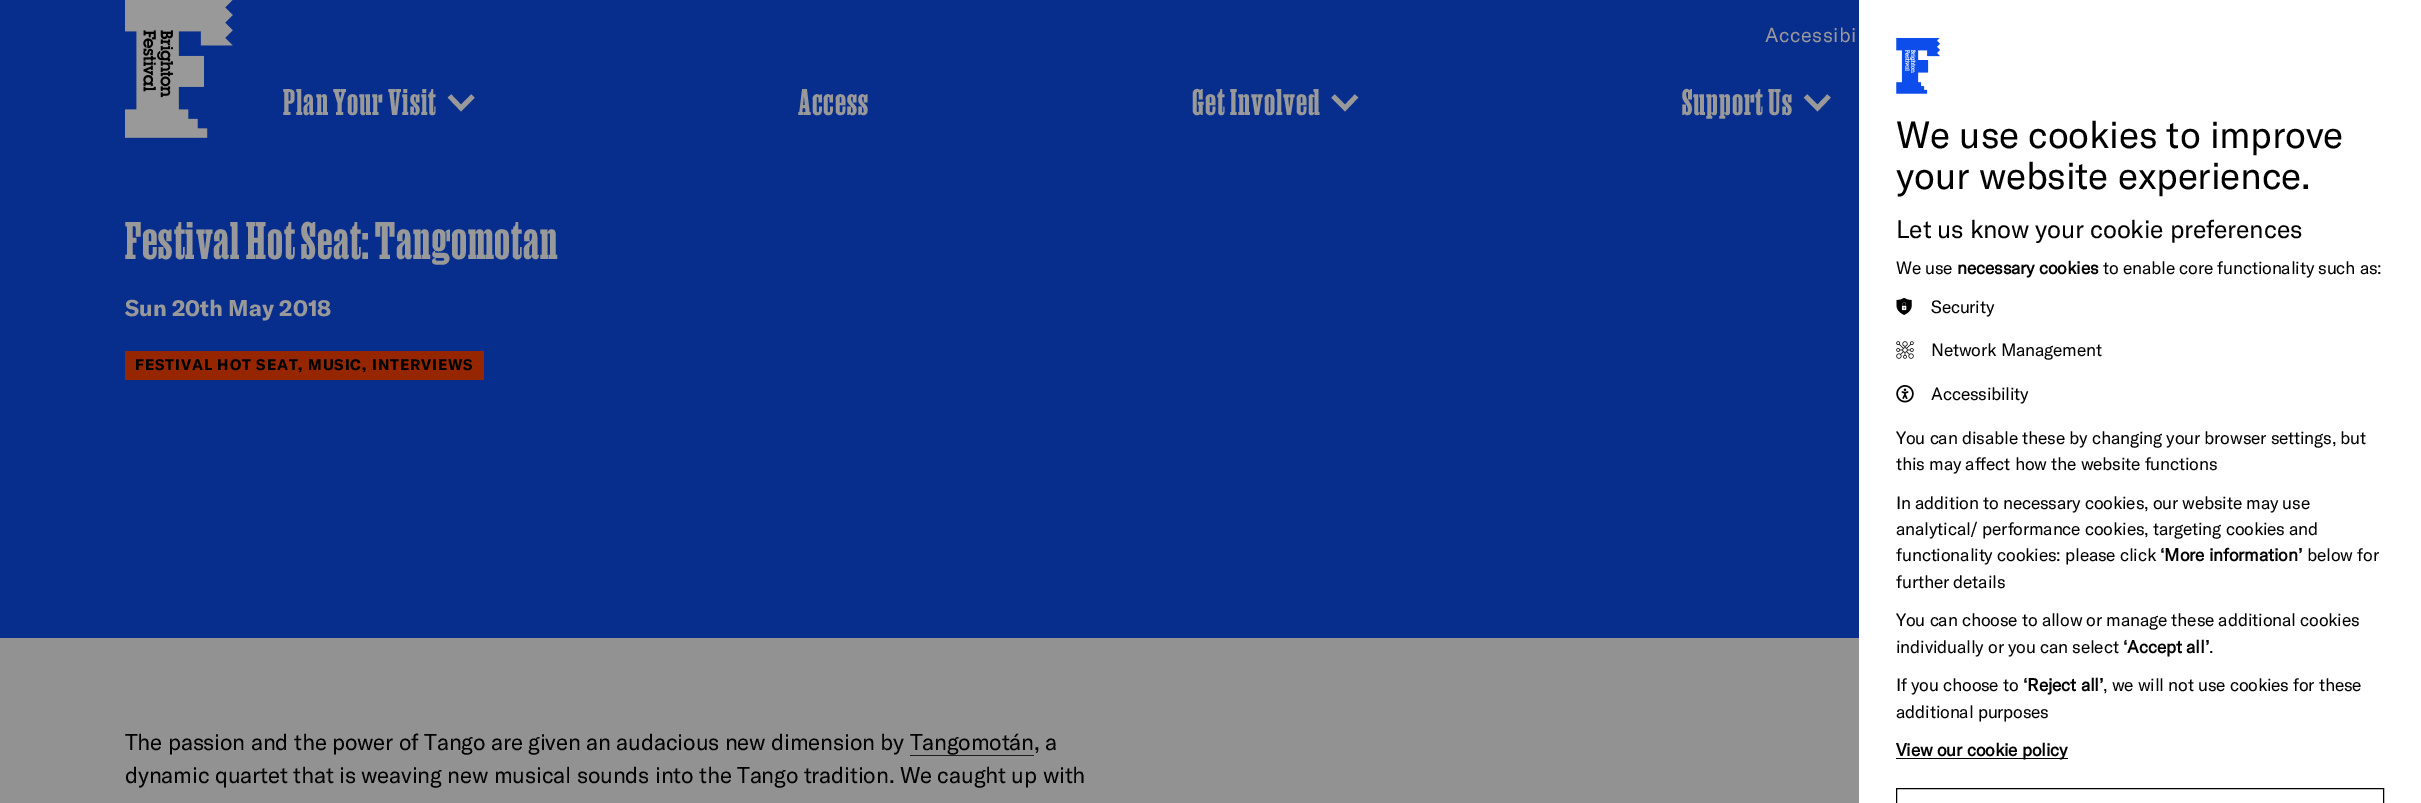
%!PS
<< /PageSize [2421 803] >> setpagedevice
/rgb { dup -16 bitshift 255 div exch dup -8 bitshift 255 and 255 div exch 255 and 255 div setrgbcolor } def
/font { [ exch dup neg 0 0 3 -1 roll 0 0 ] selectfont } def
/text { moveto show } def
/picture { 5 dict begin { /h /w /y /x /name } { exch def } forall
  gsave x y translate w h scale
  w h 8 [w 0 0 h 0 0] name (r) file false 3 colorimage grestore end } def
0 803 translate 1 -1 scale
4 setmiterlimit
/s1 { /GTAmerica-Bold 22.5 font 16#999999 rgb } def
16#929292 rgb
0 0 2421 803 rectfill
16#082E8D rgb
0 0 1859 638 rectfill
(pic1.raw) 125 0 108 138 picture
/GTAmerica-Regular 20 font
16#999999 rgb
1765 42 moveto 0.5 0 (Accessibil) ashow
/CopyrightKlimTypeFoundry-Bold 35 font
283 115 moveto 1 0 (Plan Your Visit) ashow
4.7 setlinewidth
473 96 moveto 461 108 lineto 449.5 96 lineto stroke
798 115 moveto 1 0 (Access) ashow
1192 115 moveto 1 0 (Get Involved) ashow
1356.5 96 moveto 1345 108 lineto 1333 96 lineto stroke
1682 115 moveto 1 0 (Support Us) ashow
1829 96 moveto 1817.5 108 lineto 1805.5 96 lineto stroke
/CopyrightKlimTypeFoundry-Bold 50 font
125 259 moveto 1 0 (Festival Hot Seat: Tangomotan) ashow
s1
(Sun 20th May 2018) 125 316 text
16#952600 rgb
125 351 359 29 rectfill
/GTAmerica-Bold 15 font
16#000000 rgb
135 370 moveto 0.9 0 (FESTIVAL HOT SEAT, MUSIC, INTERVIEWS) ashow
/GTAmerica-Regular 22.5 font
125 750 moveto -0.22 0 (The passion and the power of Tango are given an audacious new dimension by Tangomotán, a) ashow
16#1D1D1D rgb
910 755 124 1 rectfill
16#000000 rgb
125 783 moveto -0.22 0 (dynamic quartet that is weaving new musical sounds into the Tango tradition. We caught up with) ashow
16#FFFFFF rgb
1859 0 562 803 rectfill
(pic2.raw) 1896 38 44 56 picture
/GTAmerica-Regular 37.5 font
16#000000 rgb
1896 148 moveto -0.22 0 (We use cookies to improve) ashow
1896 189 moveto -0.22 0 (your website experience.) ashow
/GTAmerica-Regular 25 font
1896 238 moveto -0.22 0 (Let us know your cookie preferences) ashow
/GTAmerica-Regular 17.5 font
1896 274 moveto -0.22 0 (We use) ashow
/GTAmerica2-Bold 17.5 font
1957 274 moveto -0.22 0 (necessary cookies) ashow
/GTAmerica-Regular 17.5 font
2103 274 moveto -0.22 0 (to enable core functionality such as:) ashow
(pic3.raw) 1896 298 16 17 picture
1931 313 moveto -0.22 0 (Security) ashow
(pic4.raw) 1896 341 18 18 picture
1931 356 moveto -0.22 0 (Network Management) ashow
(pic5.raw) 1896 385 18 18 picture
1931 400 moveto -0.22 0 (Accessibility) ashow
1896 444 moveto -0.22 0 (You can disable these by changing your browser settings, but) ashow
1896 470 moveto -0.22 0 (this may affect how the website functions) ashow
1896 509 moveto -0.22 0 (In addition to necessary cookies, our website may use) ashow
1896 535 moveto -0.22 0 (analytical/ performance cookies, targeting cookies and) ashow
1896 561 moveto -0.22 0 (functionality cookies: please click) ashow
/GTAmerica2-Bold 17.5 font
2160 561 moveto -0.22 0 (‘More information’) ashow
/GTAmerica-Regular 17.5 font
2307 561 moveto -0.22 0 (below for) ashow
1896 588 moveto -0.22 0 (further details) ashow
1896 626 moveto -0.22 0 (You can choose to allow or manage these additional cookies) ashow
1896 653 moveto -0.22 0 (individually or you can select) ashow
/GTAmerica2-Bold 17.5 font
2123 653 moveto -0.22 0 (‘Accept all’) ashow
/GTAmerica-Regular 17.5 font
2209 653 moveto -0.22 0 (.) ashow
1896 691 moveto -0.22 0 (If you choose to) ashow
/GTAmerica2-Bold 17.5 font
2023 691 moveto -0.22 0 (‘Reject all’) ashow
/GTAmerica-Regular 17.5 font
2103 691 moveto -0.22 0 (, we will not use cookies for these) ashow
1896 718 moveto -0.22 0 (additional purposes) ashow
1896 758 172 1 rectfill
/GTAmerica2-Bold 17.5 font
1896 756 moveto -0.22 0 (View our cookie policy) ashow
1 setlinewidth
1896.5 788.5 487 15 rectstroke
showpage
